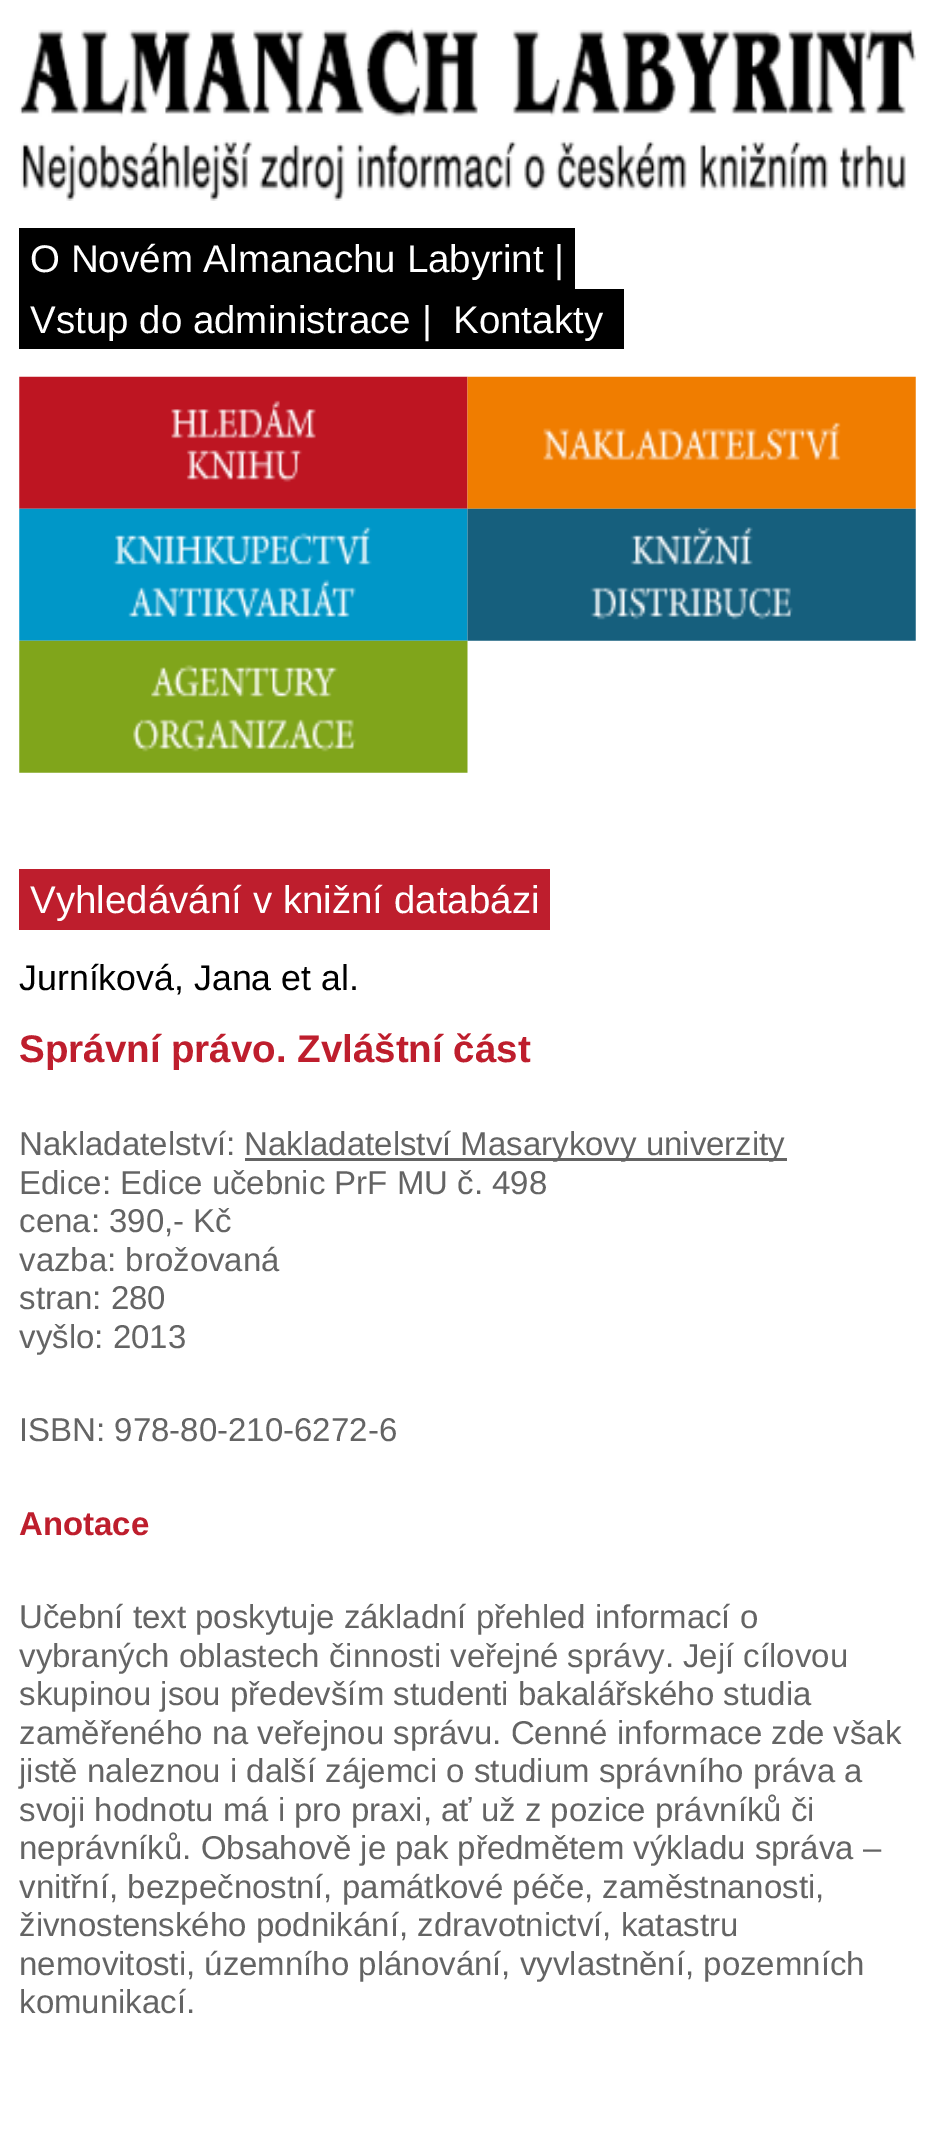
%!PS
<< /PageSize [934 2129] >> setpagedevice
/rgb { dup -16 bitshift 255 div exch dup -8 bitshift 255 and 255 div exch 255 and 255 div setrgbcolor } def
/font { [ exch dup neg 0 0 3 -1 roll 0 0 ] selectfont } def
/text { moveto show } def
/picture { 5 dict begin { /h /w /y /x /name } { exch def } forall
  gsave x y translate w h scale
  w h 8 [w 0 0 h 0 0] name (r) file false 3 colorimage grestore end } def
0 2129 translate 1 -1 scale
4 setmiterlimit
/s1 { /LiberationSans-Regular 38.5 font 16#FFFFFF rgb } def
/s2 { /LiberationSans-Regular 35.75 font 16#000000 rgb } def
/s3 { /LiberationSans-Bold 38.5 font 16#BE1E2D rgb } def
/s4 { /LiberationSans-Regular 33 font 16#646464 rgb } def
/s5 { /LiberationSans-Bold 33 font 16#BE1E2D rgb } def
16#FFFFFF rgb
0 0 934 2129 rectfill
(pic1.raw) 19 27 897 174 picture
16#000000 rgb
19 228 556 61 rectfill
s1
(O Novém Almanachu Labyrint |) 30 272 text
16#000000 rgb
19 289 605 60 rectfill
s1
(Vstup do administrace |) 30 333 text
(Kontakty) 453 333 text
(pic2.raw) 19 376 449 133 picture
(pic3.raw) 467 376 449 133 picture
(pic4.raw) 19 508 449 133 picture
(pic5.raw) 467 508 449 133 picture
(pic6.raw) 19 640 449 133 picture
16#BE1E2D rgb
19 869 531 61 rectfill
s1
(Vyhledávání v knižní databázi) 30 913 text
s2
(Jurníková, Jana et al.) 19 990 text
s3
(Správní právo. Zvláštní část) 19 1062 text
s4
(Nakladatelství:) 19 1155 text
245 1158 542 3 rectfill
(Nakladatelství Masarykovy univerzity) 244 1155 text
(Edice: Edice učebnic PrF MU č. 498) 19 1194 text
(cena: 390,- Kč) 19 1232 text
(vazba: brožovaná) 19 1271 text
(stran: 280) 19 1309 text
(vyšlo: 2013) 19 1348 text
(ISBN: 978-80-210-6272-6) 19 1441 text
s5
(Anotace) 19 1535 text
s4
(Učební text poskytuje základní přehled informací o) 19 1628 text
(vybraných oblastech činnosti veřejné správy. Její cílovou) 19 1667 text
(skupinou jsou především studenti bakalářského studia) 19 1705 text
(zaměřeného na veřejnou správu. Cenné informace zde však) 19 1744 text
(jistě naleznou i další zájemci o studium správního práva a) 19 1782 text
(svoji hodnotu má i pro praxi, ať už z pozice právníků či) 19 1821 text
(neprávníků. Obsahově je pak předmětem výkladu správa –) 19 1859 text
(vnitřní, bezpečnostní, památkové péče, zaměstnanosti,) 19 1898 text
(živnostenského podnikání, zdravotnictví, katastru) 19 1936 text
(nemovitosti, územního plánování, vyvlastnění, pozemních) 19 1975 text
(komunikací.) 19 2013 text
showpage
